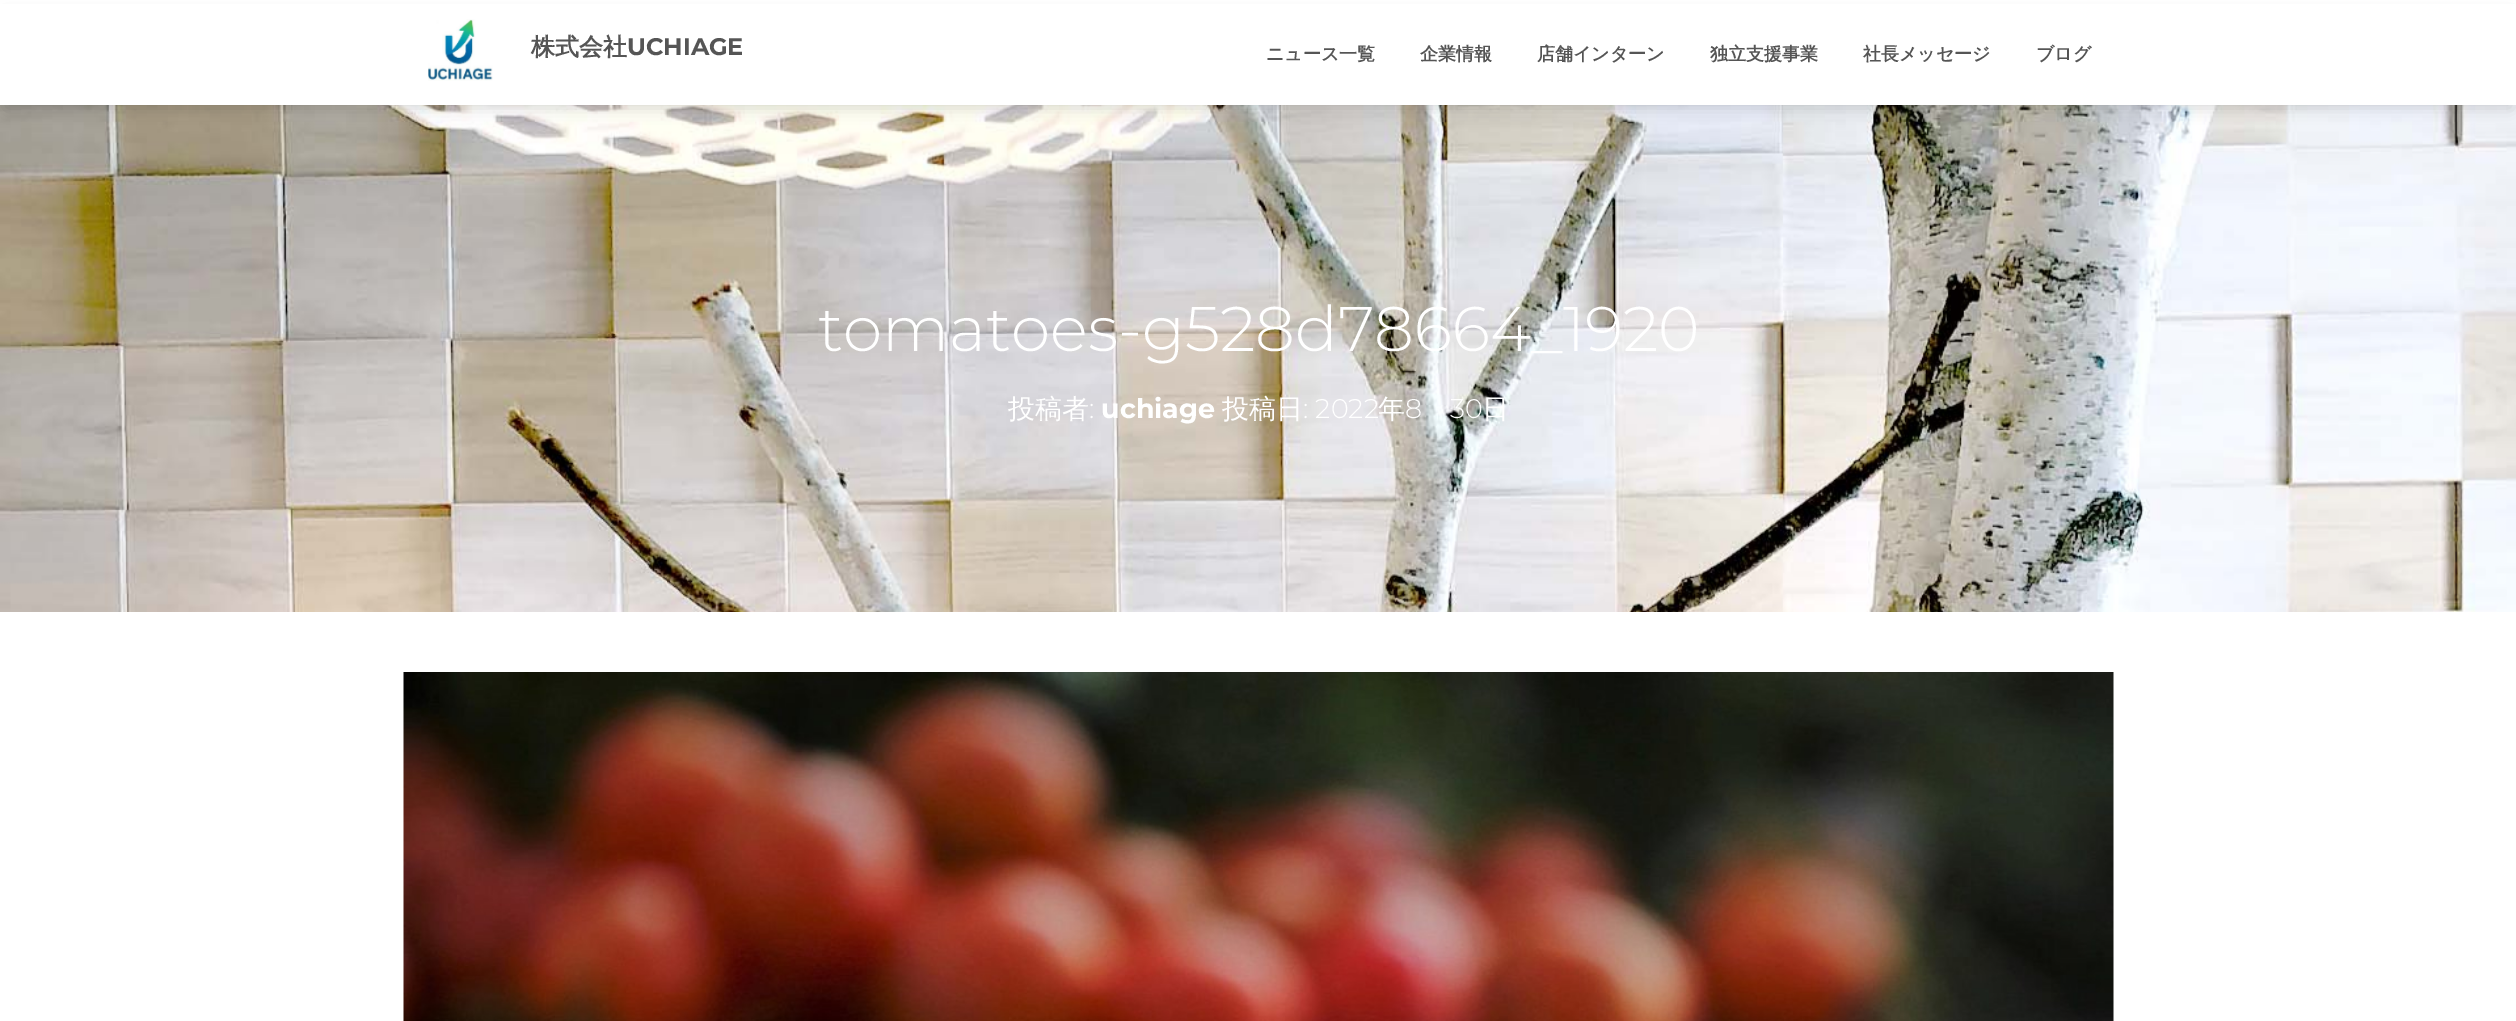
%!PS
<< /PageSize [2516 1021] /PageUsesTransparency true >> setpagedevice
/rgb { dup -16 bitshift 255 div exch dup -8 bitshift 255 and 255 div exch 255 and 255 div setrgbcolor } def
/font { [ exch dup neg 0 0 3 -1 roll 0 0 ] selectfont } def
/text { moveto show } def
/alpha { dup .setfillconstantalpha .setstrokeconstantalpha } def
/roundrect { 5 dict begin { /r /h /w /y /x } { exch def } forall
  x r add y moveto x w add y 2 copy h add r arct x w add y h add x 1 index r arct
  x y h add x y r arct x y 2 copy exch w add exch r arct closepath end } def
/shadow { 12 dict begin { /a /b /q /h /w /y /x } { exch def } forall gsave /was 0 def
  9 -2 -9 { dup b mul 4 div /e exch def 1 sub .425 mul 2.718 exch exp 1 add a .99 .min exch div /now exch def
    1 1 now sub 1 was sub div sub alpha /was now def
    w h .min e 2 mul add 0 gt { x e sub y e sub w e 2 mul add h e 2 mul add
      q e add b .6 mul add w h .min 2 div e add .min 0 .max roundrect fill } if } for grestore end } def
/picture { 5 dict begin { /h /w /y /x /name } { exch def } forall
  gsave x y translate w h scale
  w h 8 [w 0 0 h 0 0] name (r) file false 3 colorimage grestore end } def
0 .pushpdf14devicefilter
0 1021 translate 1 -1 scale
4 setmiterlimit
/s1 { /WenQuanYiZenHei-Bold 24 font 16#555555 rgb } def
/s2 { /Montserrat-Bold 24 font 16#555555 rgb } def
/s3 { /WenQuanYiZenHei-Bold 18 font 16#555555 rgb } def
/s4 { /Montserrat-Light 63 font 16#FFFFFF rgb } def
/s5 { /WenQuanYiZenHei-Medium 27 font 16#FFFFFF rgb } def
/s6 { /Montserrat-Light 27 font 16#FFFFFF rgb } def
/s7 { /Montserrat-Bold 27 font 16#FFFFFF rgb } def
16#FFFFFF rgb
0 0 2516 1021 rectfill
(pic2.raw) 0 105 2516 507 picture
16#000000 rgb
6 15 2505 93 0 7.5 0.15 shadow
16#FFFFFF rgb
0 4 2516 101 rectfill
(pic1.raw) 428 19 65 62 picture
s1
(株式会社) 531 55 text
s2
(UCHIAGE) 627 55 text
s3
(ニュース一覧) 1266 60 text
(企業情報) 1420 60 text
(店舗インターン) 1537 60 text
(独立支援事業) 1710 60 text
(社長メッセージ) 1863 60 text
(ブログ) 2036 60 text
s4
(tomatoes-g528d78664_1920) 818 351 text
s5
(投稿者) 1008 418 text
s6
(:) 1089 418 text
s7
(uchiage) 1101 418 text
s5
(投稿日) 1222 418 text
s6
(: 2022) 1303 418 text
s5
(年) 1378 418 text
s6
(8) 1405 418 text
(30) 1450 418 text
s5
(日) 1482 418 text
(pic3.raw) 403 672 1711 349 picture
.poppdf14devicefilter showpage
